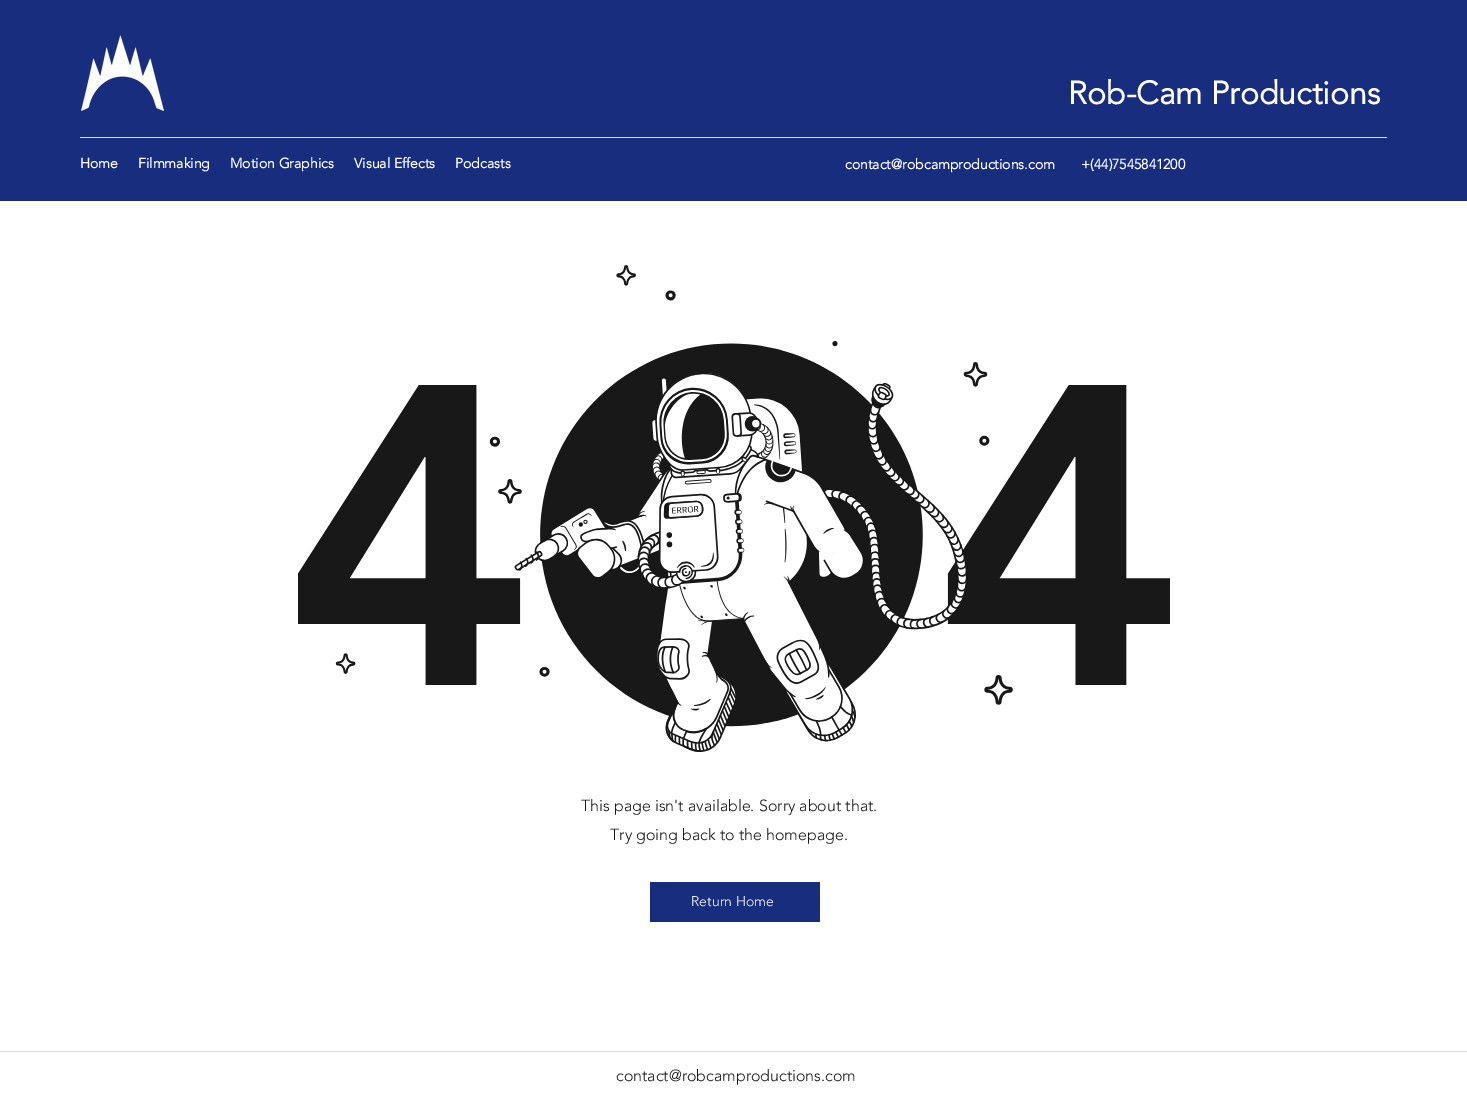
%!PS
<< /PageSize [1467 1100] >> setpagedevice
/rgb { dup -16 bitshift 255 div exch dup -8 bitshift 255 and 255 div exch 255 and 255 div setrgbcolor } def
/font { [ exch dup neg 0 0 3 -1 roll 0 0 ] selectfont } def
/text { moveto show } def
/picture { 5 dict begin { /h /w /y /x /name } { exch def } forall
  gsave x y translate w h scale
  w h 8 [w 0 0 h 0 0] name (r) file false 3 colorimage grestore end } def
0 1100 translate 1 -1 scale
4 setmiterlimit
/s1 { /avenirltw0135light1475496-Bold 32 font 16#FFFFFF rgb } def
/s2 { /avenirltw0135light1475496-Bold 14 font 16#FFFFFF rgb } def
/s3 { /avenirltw0135light1475496-Light 16 font 16#181818 rgb } def
/s4 { /avenirltw0135light1475496-Light 14 font 16#FFFFFF rgb } def
16#FFFFFF rgb
0 0 1467 1100 rectfill
16#182D7D rgb
0 0 1467 201 rectfill
(pic1.raw) 81 35 84 76 picture
s1
(Rob-Cam Productions) 1068 104 text
16#DCE0EC rgb
80 137 1307 1 rectfill
s2
(Home) 80 168 text
(Filmmaking) 138 168 text
(Motion Graphics) 230 168 text
(Visual Effects) 354 168 text
(Podcasts) 455 168 text
(contact@robcamproductions.com) 845 169 text
(+\(44\)7545841200) 1081 169 text
(pic2.raw) 298 265 872 487 picture
s3
(This page isn't available. Sorry about that.) 581 811 text
(Try going back to the homepage.) 610 840 text
16#182D7D rgb
650 882 170 40 rectfill
s4
(Return Home) 691 906 text
16#DCDCDC rgb
0 1051 1467 1 rectfill
s3
(contact@robcamproductions.com) 616 1081 text
showpage
